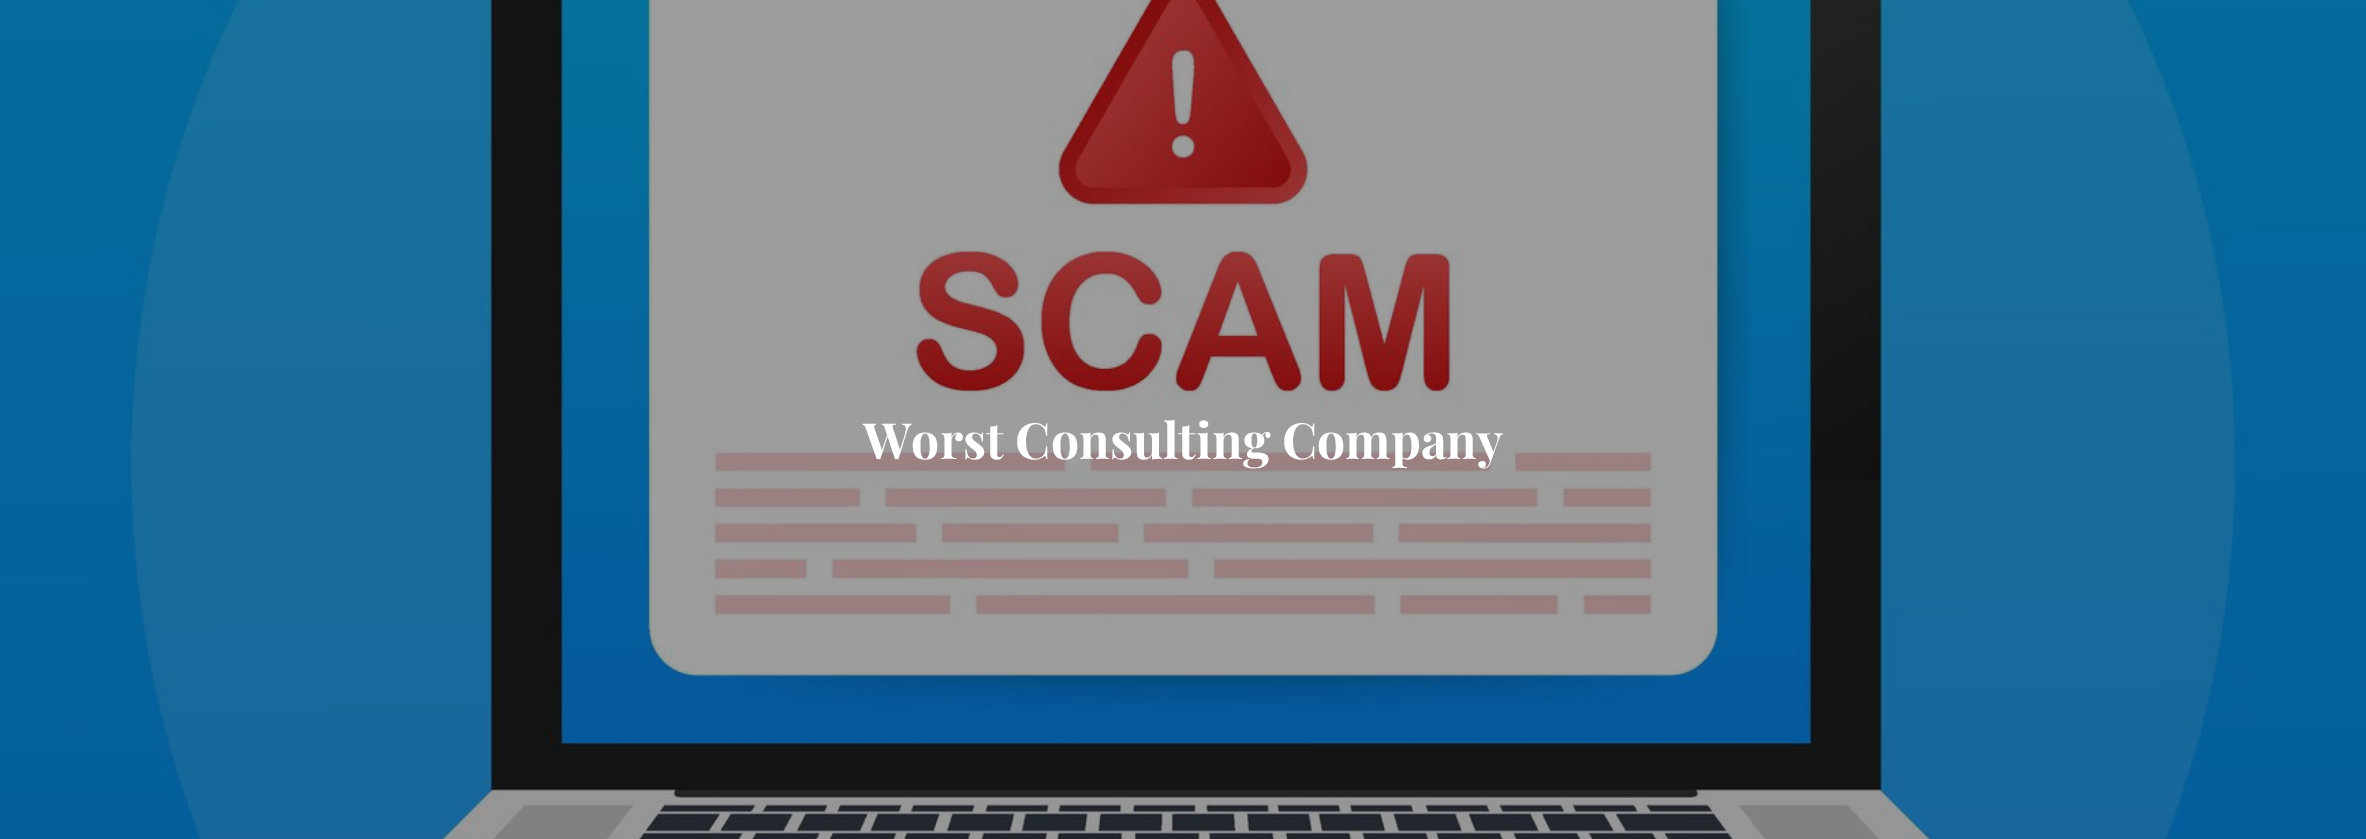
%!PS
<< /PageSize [2366 839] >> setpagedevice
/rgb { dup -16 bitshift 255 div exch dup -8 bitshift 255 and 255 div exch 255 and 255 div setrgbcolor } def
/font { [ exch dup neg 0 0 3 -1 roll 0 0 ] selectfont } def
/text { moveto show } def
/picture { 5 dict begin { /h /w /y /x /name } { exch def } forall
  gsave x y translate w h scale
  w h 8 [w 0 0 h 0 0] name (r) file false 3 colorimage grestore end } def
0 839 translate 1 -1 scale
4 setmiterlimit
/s1 { /PlayfairDisplay-Bold 50 font 16#FFFFFF rgb } def
16#FFFFFF rgb
0 0 2366 839 rectfill
(pic1.raw) 0 0 2366 839 picture
s1
(Worst Consulting Company) 863 459 text
showpage
